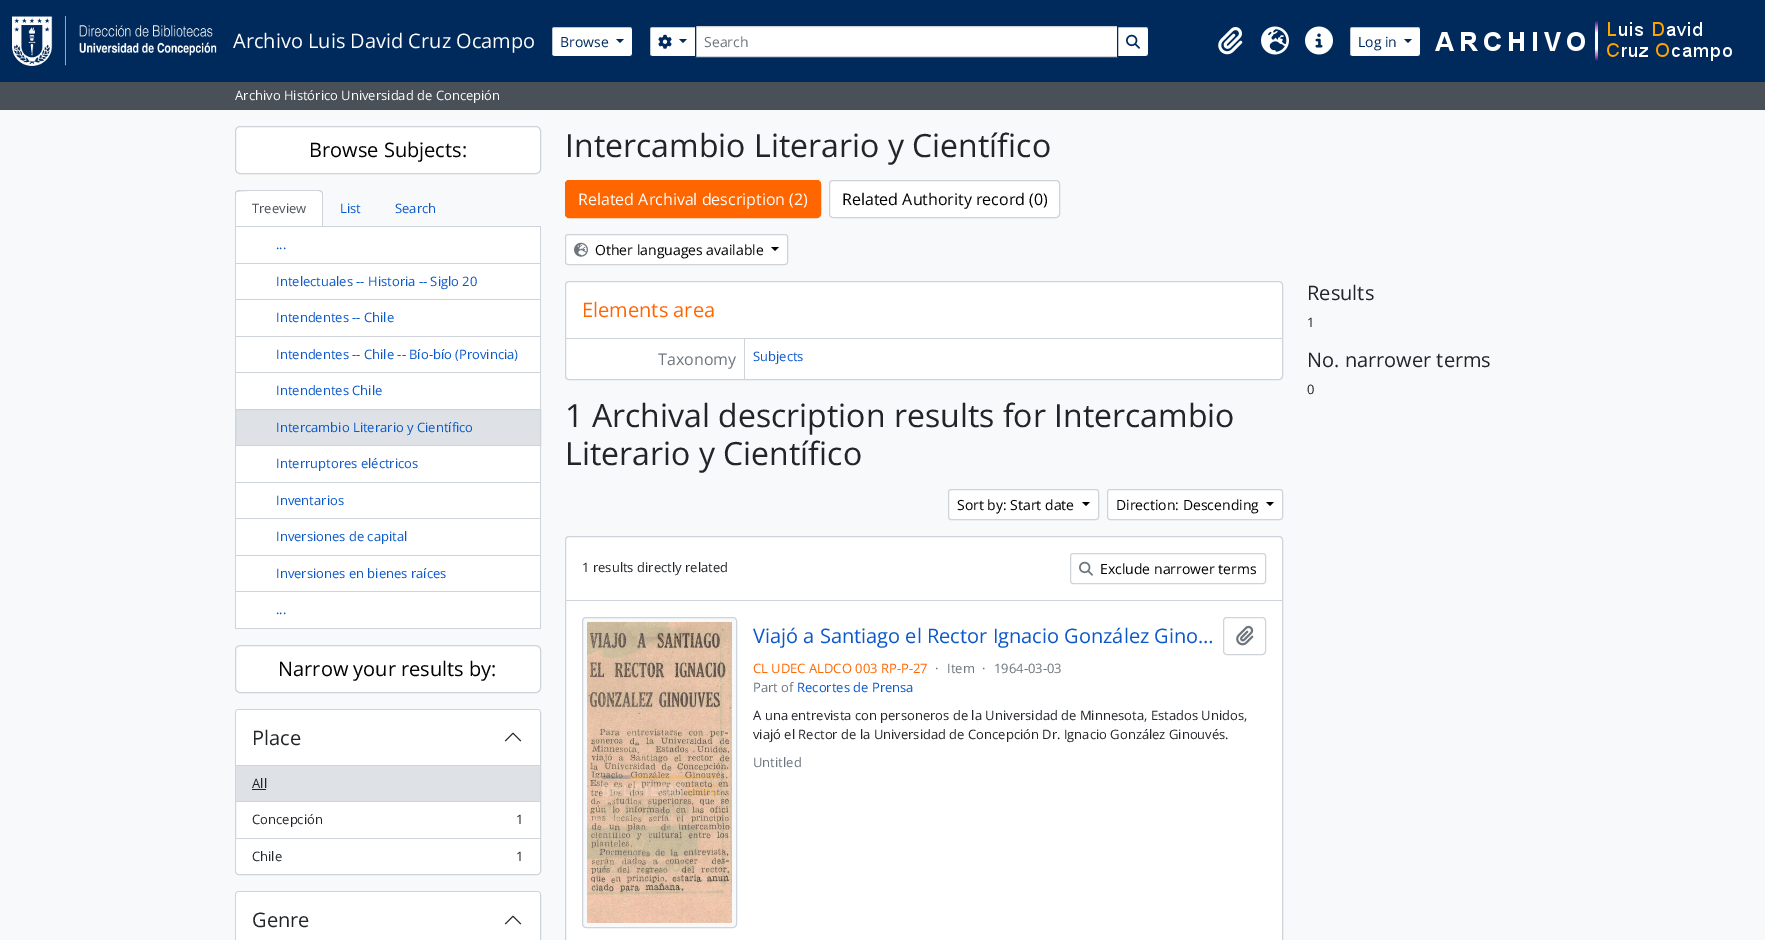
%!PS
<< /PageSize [1765 940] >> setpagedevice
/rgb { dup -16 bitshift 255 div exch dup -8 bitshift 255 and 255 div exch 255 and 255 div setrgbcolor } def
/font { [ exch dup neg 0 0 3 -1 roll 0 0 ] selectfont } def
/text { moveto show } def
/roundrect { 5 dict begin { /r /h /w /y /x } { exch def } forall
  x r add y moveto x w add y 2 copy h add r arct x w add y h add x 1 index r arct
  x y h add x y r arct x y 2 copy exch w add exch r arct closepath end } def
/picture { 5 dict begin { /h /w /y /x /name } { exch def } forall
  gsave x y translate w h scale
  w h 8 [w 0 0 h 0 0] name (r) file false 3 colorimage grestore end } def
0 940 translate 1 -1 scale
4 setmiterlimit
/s1 { /OpenSans-Regular 20 font 16#FFFFFF rgb } def
/s2 { /OpenSans-Regular 14 font 16#002A5C rgb } def
/s3 { /OpenSans-Regular 14 font 16#6C757D rgb } def
/s4 { /OpenSans-Regular 13 font 16#FFFFFF rgb } def
/s5 { /OpenSans-Regular 20 font 16#000000 rgb } def
/s6 { /OpenSans-Regular 13 font 16#495057 rgb } def
/s7 { /OpenSans-Regular 13 font 16#0A58CA rgb } def
/s8 { /OpenSans-Regular 20 font 16#212529 rgb } def
/s9 { /OpenSans-Regular 13 font 16#212529 rgb } def
/s10 { /OpenSans-Regular 32 font 16#212529 rgb } def
/s11 { /OpenSans-Regular 16 font 16#FFFFFF rgb } def
/s12 { /OpenSans-Regular 16 font 16#000000 rgb } def
/s13 { /OpenSans-Regular 14 font 16#000000 rgb } def
/s14 { /OpenSans-Regular 20 font 16#FF6600 rgb } def
/s15 { /OpenSans-Regular 16 font 16#6C757D rgb } def
/s16 { /OpenSans-Regular 20 font 16#0A58CA rgb } def
/s17 { /OpenSans-Regular 13 font 16#FF6600 rgb } def
/s18 { /OpenSans-Regular 13 font 16#6C757D rgb } def
16#F8F9FA rgb
0 0 1765 940 rectfill
16#002A5C rgb
0 0 1765 82 rectfill
(pic1.raw) 12 16 205 50 picture
s1
(Archivo Luis David Cruz Ocampo) 233 48 text
551.5 26.5 81 30 2.5 roundrect gsave fill grestore
16#002A5C rgb
stroke
s2
(Browse) 560 47 text
616 39 moveto 624 39 lineto 620 43 lineto closepath fill
16#FFFFFF rgb
695.5 26.5 moveto 1117.5 26.5 lineto 1117.5 56.5 lineto 695.5 56.5 lineto closepath gsave fill grestore
16#CED4DA rgb
stroke
16#FFFFFF rgb
652 26.5 moveto 695.5 26.5 lineto 695.5 56.5 lineto 652 56.5 lineto 650.5 56.5 649.5 55.5 649.5 54 curveto 649.5 29 lineto 649.5 27.5 650.5 26.5 652 26.5 curveto closepath gsave fill grestore
16#002A5C rgb
stroke
(pic2.raw) 658 34 14 15 picture
679 39 moveto 687 39 lineto 683 43 lineto closepath fill
s3
(Search) 704 47 text
16#FFFFFF rgb
1117.5 26.5 moveto 1146 26.5 lineto 1147.5 26.5 1148.5 27.5 1148.5 29 curveto 1148.5 54 lineto 1148.5 55.5 1147.5 56.5 1146 56.5 curveto 1117.5 56.5 lineto closepath gsave fill grestore
16#002A5C rgb
stroke
(pic3.raw) 1126 34 14 15 picture
(pic4.raw) 1218 27 25 28 picture
(pic5.raw) 1261 26 28 29 picture
(pic6.raw) 1305 26 28 29 picture
16#FFFFFF rgb
1349.5 26.5 71 30 2.5 roundrect gsave fill grestore
16#002A5C rgb
stroke
(Log in) 1358 47 text
1404 39 moveto 1412 39 lineto 1408 43 lineto closepath fill
(pic7.raw) 1435 21 297 40 picture
16#495057 rgb
0 82 1765 28 rectfill
s4
(Archivo Histórico Universidad de Concepión) 235 100 text
235.5 126.5 305 47 4.5 roundrect gsave fill grestore
16#CED4DA rgb
stroke
s5
(Browse Subjects:) 309 157 text
16#FFFFFF rgb
239 190 moveto 319 190 lineto 321 190 323 192 323 194 curveto 323 227 lineto 235 227 lineto 235 194 lineto 235 192 237 190 239 190 curveto closepath fill
16#CED4DA rgb
239 190 moveto 236 191 lineto 237 192 lineto 239 190 298 191 306 191 curveto 319 191 lineto 321 192 lineto 322 191 lineto 319 190 lineto closepath fill
323 227 moveto 323 194 lineto 323 193 322.5 192 322 191 curveto 321 192 lineto 322 192 322 193 322 194 curveto 322 226 lineto closepath fill
235 227 moveto 236 226 lineto 236 194 lineto 236 193 236 192 237 192 curveto 236 191 lineto 235.5 192 235 193 235 194 curveto closepath fill
s6
(Treeview) 252 213 text
s7
(List) 340 213 text
(Search) 395 213 text
16#CED4DA rgb
235 226 306 1 rectfill
16#FFFFFF rgb
236 227 304 36 rectfill
16#CED4DA rgb
540 227 1 183 rectfill
235 263 306 1 rectfill
235 227 1 37 rectfill
s7
(...) 276 249 text
16#FFFFFF rgb
236 264 304 35 rectfill
16#CED4DA rgb
235 299 306 1 rectfill
235 264 1 36 rectfill
s7
(Intelectuales -- Historia -- Siglo 20) 276 286 text
16#FFFFFF rgb
236 300 304 36 rectfill
16#CED4DA rgb
235 336 306 1 rectfill
235 300 1 37 rectfill
s7
(Intendentes -- Chile) 276 322 text
16#FFFFFF rgb
236 337 304 35 rectfill
16#CED4DA rgb
235 372 306 1 rectfill
235 337 1 73 rectfill
s7
(Intendentes -- Chile -- Bío-bío \(Provincia\)) 276 359 text
16#FFFFFF rgb
236 373 304 36 rectfill
s7
(Intendentes Chile) 276 395 text
16#DEE2E6 rgb
235.5 409.5 moveto 540.5 409.5 lineto 540.5 445.5 lineto 235.5 445.5 lineto closepath gsave fill grestore
16#CED4DA rgb
stroke
s7
(Intercambio Literario y Científico) 276 432 text
16#FFFFFF rgb
236 446 304 36 rectfill
16#CED4DA rgb
540 446 1 183 rectfill
235 482 306 1 rectfill
235 446 1 37 rectfill
s7
(Interruptores eléctricos) 276 468 text
16#FFFFFF rgb
236 483 304 35 rectfill
16#CED4DA rgb
235 518 306 1 rectfill
235 483 1 36 rectfill
s7
(Inventarios) 276 505 text
16#FFFFFF rgb
236 519 304 36 rectfill
16#CED4DA rgb
235 555 306 1 rectfill
235 519 1 37 rectfill
s7
(Inversiones de capital) 276 541 text
16#FFFFFF rgb
236 556 304 35 rectfill
16#CED4DA rgb
235 591 306 1 rectfill
235 556 1 36 rectfill
s7
(Inversiones en bienes raíces) 276 578 text
16#FFFFFF rgb
236 592 304 36 rectfill
16#CED4DA rgb
235 628 306 1 rectfill
235 592 1 37 rectfill
s7
(...) 276 614 text
16#FFFFFF rgb
235.5 645.5 305 47 4.5 roundrect gsave fill grestore
16#CED4DA rgb
stroke
s5
(Narrow your results by:) 278 676 text
16#FFFFFF rgb
235.5 709.5 305 165 3.5 roundrect gsave fill grestore
16#CED4DA rgb
stroke
16#FFFFFF rgb
239 710 moveto 537 710 lineto 538.5 710 540 711.5 540 713 curveto 540 766 lineto 236 766 lineto 236 713 lineto 236 711.5 237.5 710 239 710 curveto closepath fill
16#CED4DA rgb
236 765 304 1 rectfill
s8
(Place) 252 745 text
(pic8.raw) 504 732 18 10 picture
16#DEE2E6 rgb
236 766 304 35 rectfill
16#CED4DA rgb
236 801 304 1 rectfill
s9
(All) 252 788 text
252 789 14 1 rectfill
16#CED4DA rgb
236 838 304 1 rectfill
s9
(Concepción) 252 824 text
(1) 516 824 text
16#FFFFFF rgb
236 839 moveto 540 839 lineto 540 870 lineto 540 872 538 874 536 874 curveto 240 874 lineto 238 874 236 872 236 870 curveto closepath fill
s9
(Chile) 252 861 text
(1) 516 861 text
16#CED4DA rgb
235.5 891.5 305 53 3.5 roundrect stroke
16#FFFFFF rgb
239 892 moveto 537 892 lineto 538.5 892 540 893.5 540 895 curveto 540 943 lineto 236 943 lineto 236 895 lineto 236 893.5 237.5 892 239 892 curveto closepath fill
s8
(Genre) 252 927 text
(pic8.raw) 504 915 18 10 picture
s10
(Intercambio Literario y Científico) 565 157 text
16#FF6600 rgb
565.5 180.5 255 37 3.5 roundrect gsave fill grestore
stroke
s11
(Related Archival description \(2\)) 578 205 text
829.5 180.5 230 37 3.5 roundrect gsave fill grestore
16#CED4DA rgb
stroke
s12
(Related Authority record \(0\)) 842 205 text
16#FFFFFF rgb
565.5 234.5 222 30 2.5 roundrect gsave fill grestore
16#CED4DA rgb
stroke
(pic9.raw) 574 242 14 15 picture
s13
(Other languages available) 595 255 text
771 247 moveto 779 247 lineto 775 251 lineto closepath fill
16#FFFFFF rgb
565.5 281.5 717 98 3.5 roundrect gsave fill grestore
16#CED4DA rgb
stroke
566 338 716 1 rectfill
s14
(Elements area) 582 317 text
16#CED4DA rgb
744 339 1 40 rectfill
s15
(Taxonomy) 658 365 text
s7
(Subjects) 753 361 text
s10
(1 Archival description results for Intercambio) 565 427 text
(Literario y Científico) 565 465 text
16#FFFFFF rgb
948.5 489.5 150 30 2.5 roundrect gsave fill grestore
16#CED4DA rgb
stroke
s13
(Sort by: Start date) 957 510 text
1082 502 moveto 1090 502 lineto 1086 506 lineto closepath fill
16#FFFFFF rgb
1107.5 489.5 175 30 2.5 roundrect gsave fill grestore
16#CED4DA rgb
stroke
s13
(Direction: Descending) 1116 510 text
1266 502 moveto 1274 502 lineto 1270 506 lineto closepath fill
16#FFFFFF rgb
565.5 536.5 717 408 3.5 roundrect gsave fill grestore
16#CED4DA rgb
stroke
566 600 716 1 rectfill
s9
(1 results directly related) 582 572 text
16#CED4DA rgb
1070.5 553.5 195 30 2.5 roundrect stroke
(pic10.raw) 1079 561 14 15 picture
s13
(Exclude narrower terms) 1100 574 text
16#F8F9FA rgb
582.5 617.5 154 310 3.5 roundrect gsave fill grestore
16#CED4DA rgb
stroke
(pic11.raw) 587 622 145 301 picture
s16
(Viajó a Santiago el Rector Ignacio González Gino…) 753 643 text
16#CED4DA rgb
1223.5 617.5 42 37 3.5 roundrect stroke
(pic12.raw) 1236 625 18 21 picture
s17
(CL UDEC ALDCO 003 RP-P-27) 753 673 text
s18
(·) 935 673 text
(Item) 947 673 text
(·) 982 673 text
(1964-03-03) 994 673 text
(Part of) 753 692 text
s7
(Recortes de Prensa) 797 692 text
s9
(A una entrevista con personeros de la Universidad de Minnesota, Estados Unidos,) 753 720 text
(viajó el Rector de la Universidad de Concepción Dr. Ignacio González Ginouvés.) 753 739 text
s18
(Untitled) 753 767 text
s8
(Results) 1307 300 text
s9
(1) 1307 327 text
s8
(No. narrower terms) 1307 367 text
s9
(0) 1307 394 text
showpage
